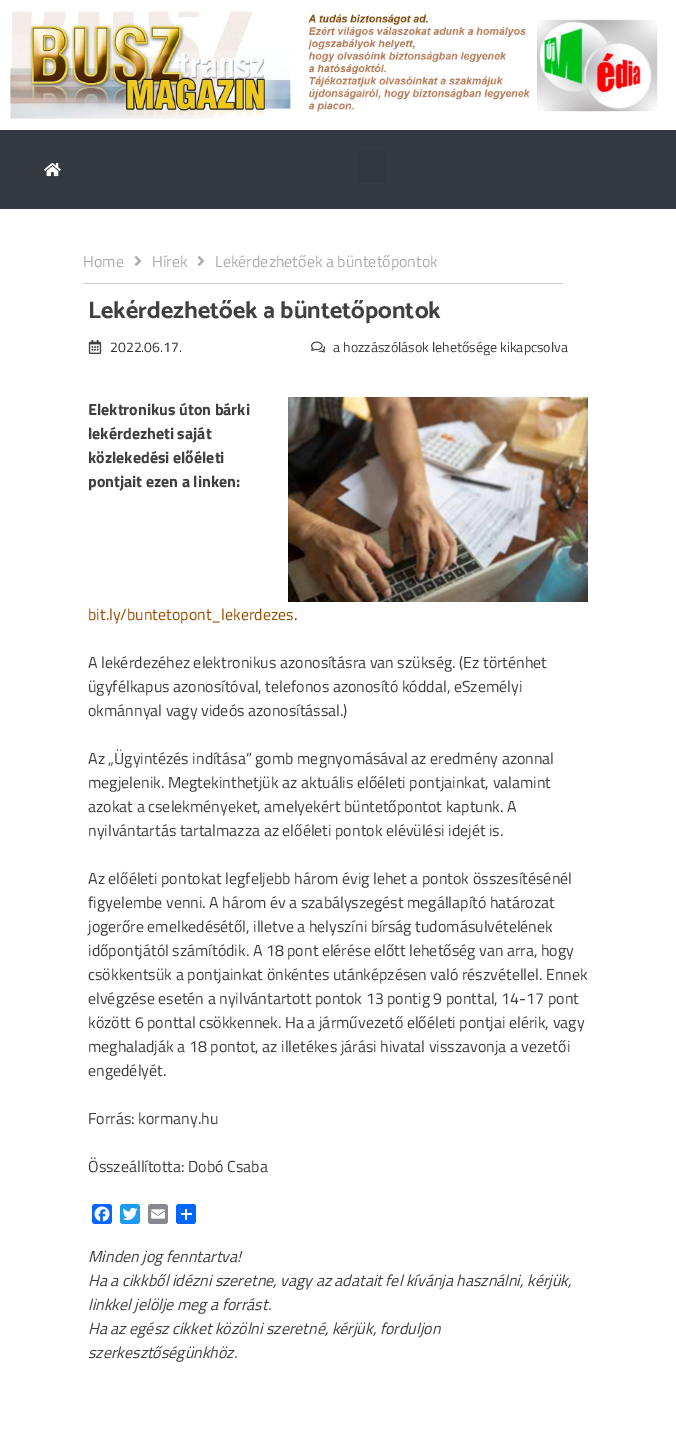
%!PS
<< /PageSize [676 1451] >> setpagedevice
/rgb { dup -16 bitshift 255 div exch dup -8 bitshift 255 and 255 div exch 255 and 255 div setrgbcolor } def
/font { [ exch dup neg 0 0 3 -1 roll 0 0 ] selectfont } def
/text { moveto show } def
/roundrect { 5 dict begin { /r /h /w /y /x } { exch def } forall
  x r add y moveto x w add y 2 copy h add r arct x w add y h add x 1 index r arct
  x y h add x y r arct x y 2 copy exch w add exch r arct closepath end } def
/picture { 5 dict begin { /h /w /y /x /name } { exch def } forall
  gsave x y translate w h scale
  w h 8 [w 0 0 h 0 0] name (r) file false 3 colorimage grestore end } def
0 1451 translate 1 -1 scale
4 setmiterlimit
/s1 { /TitilliumWeb-Regular 16 font 16#ACACAC rgb } def
/s2 { /Catamaran-Bold 24 font 16#404040 rgb } def
/s3 { /TitilliumWeb-Regular 14 font 16#333333 rgb } def
/s4 { /TitilliumWeb-Regular 14 font 16#404040 rgb } def
/s5 { /TitilliumWeb-Bold 16 font 16#404040 rgb } def
/s6 { /TitilliumWeb-Regular 16 font 16#994C00 rgb } def
/s7 { /TitilliumWeb-Regular 16 font 16#404040 rgb } def
/s8 { /TitilliumWeb-Italic 16 font 16#404040 rgb } def
16#FFFFFF rgb
0 0 676 1451 rectfill
(pic1.raw) 10 10 648 109 picture
16#343A40 rgb
0 130 676 79 rectfill
(pic2.raw) 44 162 17 15 picture
16#31373D rgb
357 150 28 33 3 roundrect fill
16#CCCCCC rgb
83 283 480 1 rectfill
s1
(Home) 83 267 text
(pic3.raw) 134 256 8 10 picture
(Hírek) 152 267 text
(pic3.raw) 197 256 8 10 picture
(Lekérdezhetőek a büntetőpontok) 215 267 text
s2
(Lekérdezhetőek a büntetőpontok) 88 318 text
(pic4.raw) 88 340 14 14 picture
s3
(2022.06.17.) 110 352 text
(pic5.raw) 311 341 14 12 picture
s4
(a hozzászólások lehetősége kikapcsolva) 333 352 text
s5
(Elektronikus úton bárki) 88 415 text
(pic6.raw) 288 397 300 205 picture
(lekérdezheti saját) 88 439 text
(közlekedési előéleti) 88 463 text
(pontjait ezen a linken:) 88 487 text
s6
(bit.ly/buntetopont_lekerdezes) 88 620 text
s7
(.) 294 620 text
(A lekérdezéhez elektronikus azonosításra van szükség. \(Ez történhet) 88 668 text
(ügyfélkapus azonosítóval, telefonos azonosító kóddal, eSzemélyi) 88 692 text
(okmánnyal vagy videós azonosítással.\)) 88 716 text
(Az „Ügyintézés indítása” gomb megnyomásával az eredmény azonnal) 88 764 text
(megjelenik. Megtekinthetjük az aktuális előéleti pontjainkat, valamint) 88 788 text
(azokat a cselekményeket, amelyekért büntetőpontot kaptunk. A) 88 812 text
(nyilvántartás tartalmazza az előéleti pontok elévülési idejét is.) 88 836 text
(Az előéleti pontokat legfeljebb három évig lehet a pontok összesítésénél) 88 884 text
(figyelembe venni. A három év a szabályszegést megállapító határozat) 88 908 text
(jogerőre emelkedésétől, illetve a helyszíni bírság tudomásulvételének) 88 932 text
(időpontjától számítódik. A 18 pont elérése előtt lehetőség van arra, hogy) 88 956 text
(csökkentsük a pontjainkat önkéntes utánképzésen való részvétellel. Ennek) 88 980 text
(elvégzése esetén a nyilvántartott pontok 13 pontig 9 ponttal, 14-17 pont) 88 1004 text
(között 6 ponttal csökkennek. Ha a járművezető előéleti pontjai elérik, vagy) 88 1028 text
(meghaladják a 18 pontot, az illetékes járási hivatal visszavonja a vezetői) 88 1052 text
(engedélyét.) 88 1076 text
(Forrás: kormany.hu) 88 1124 text
(Összeállította: Dobó Csaba) 88 1172 text
16#0866FF rgb
92 1204 20 20 3 roundrect fill
(pic7.raw) 94 1206 16 16 picture
16#1D9BF0 rgb
120 1204 20 20 3 roundrect fill
(pic8.raw) 122 1207 16 14 picture
16#888990 rgb
148 1204 20 20 3 roundrect fill
(pic9.raw) 151 1209 14 10 picture
16#0166FF rgb
176 1204 20 20 3 roundrect fill
16#FFFFFF rgb
185 1209 2 11 rectfill
181 1213 11 2 rectfill
s8
(Minden jog fenntartva!) 88 1262 text
(Ha a cikkből idézni szeretne, vagy az adatait fel kívánja használni, kérjük,) 88 1286 text
(linkkel jelölje meg a forrást.) 88 1310 text
(Ha az egész cikket közölni szeretné, kérjük, forduljon) 88 1334 text
(szerkesztőségünkhöz.) 88 1358 text
showpage
